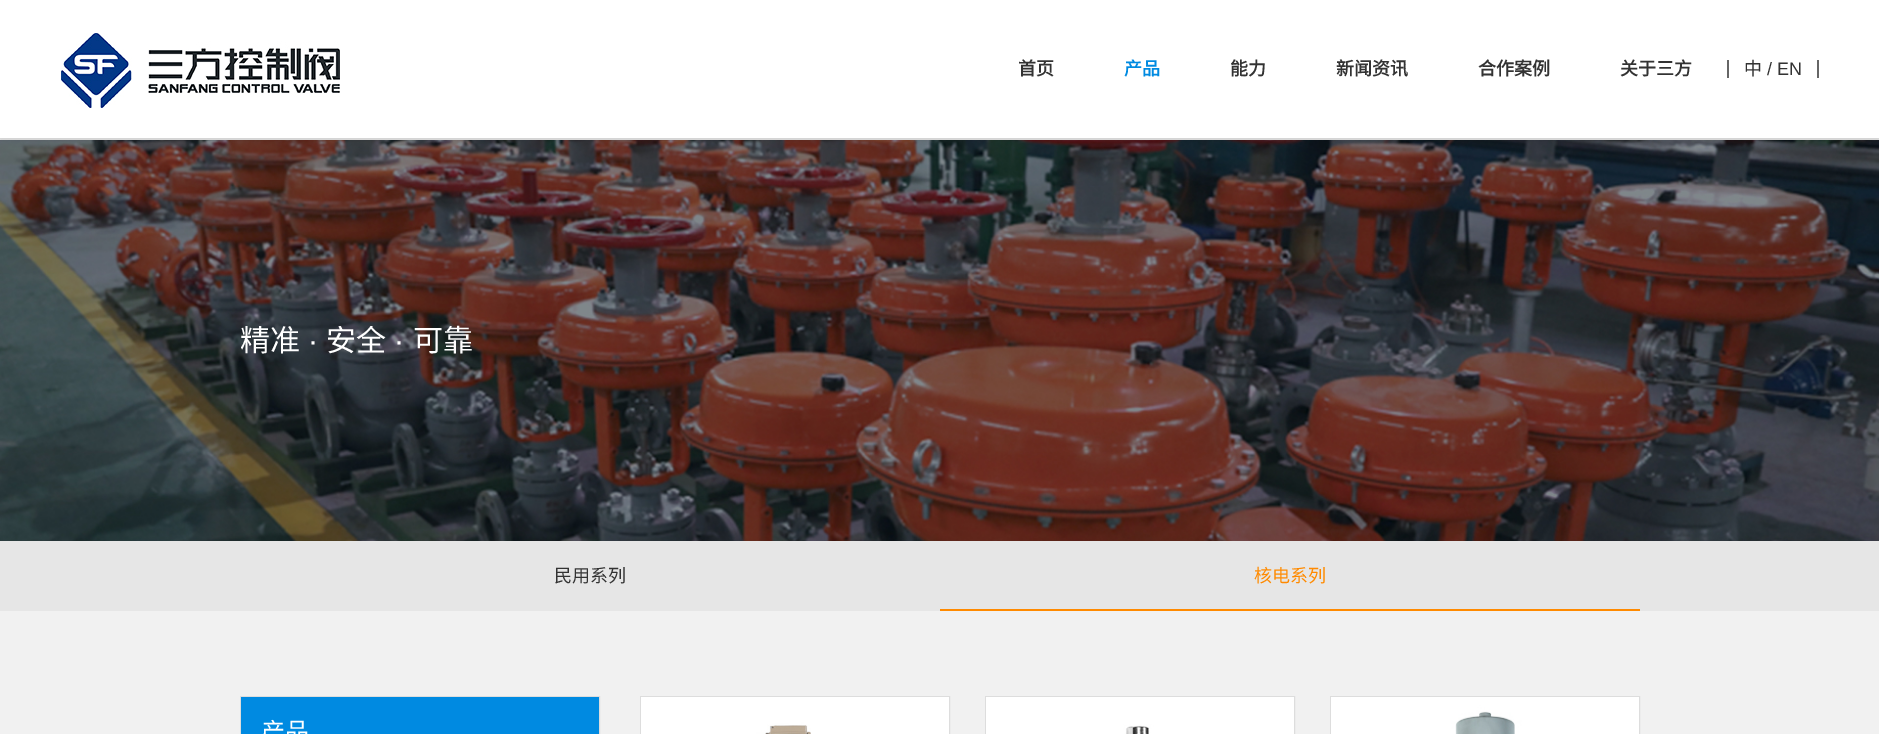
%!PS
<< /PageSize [1879 734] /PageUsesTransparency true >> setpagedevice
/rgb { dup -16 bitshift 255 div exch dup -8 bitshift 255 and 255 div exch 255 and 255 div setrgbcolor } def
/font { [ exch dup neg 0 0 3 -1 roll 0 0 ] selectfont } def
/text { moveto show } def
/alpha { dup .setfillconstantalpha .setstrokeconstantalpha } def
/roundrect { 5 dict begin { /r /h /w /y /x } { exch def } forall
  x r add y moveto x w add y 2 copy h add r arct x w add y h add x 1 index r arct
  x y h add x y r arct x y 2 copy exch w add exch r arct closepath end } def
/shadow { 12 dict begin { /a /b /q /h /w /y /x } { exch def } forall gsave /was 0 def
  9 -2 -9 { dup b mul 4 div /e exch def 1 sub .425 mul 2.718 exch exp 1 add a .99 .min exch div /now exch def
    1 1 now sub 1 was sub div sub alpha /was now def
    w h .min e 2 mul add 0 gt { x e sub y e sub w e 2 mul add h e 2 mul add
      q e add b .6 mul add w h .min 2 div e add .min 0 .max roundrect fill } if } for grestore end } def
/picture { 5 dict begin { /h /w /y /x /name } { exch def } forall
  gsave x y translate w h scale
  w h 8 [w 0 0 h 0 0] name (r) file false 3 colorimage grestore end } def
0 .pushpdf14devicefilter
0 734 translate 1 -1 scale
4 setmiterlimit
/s1 { /NotoSansCJKSC-Bold 18 font 16#333333 rgb } def
/s2 { /NotoSansCJKSC-Bold 18 font 16#008AE1 rgb } def
/s3 { /NotoSansCJKSC-Regular 18 font 16#333333 rgb } def
/s4 { /LiberationSans-Regular 18 font 16#333333 rgb } def
/s5 { /NotoSansCJKSC-Regular 30 font 16#FFFFFF rgb } def
/s6 { /LiberationSans-Regular 30 font 16#FFFFFF rgb } def
/s7 { /NotoSansCJKSC-Regular 18 font 16#FF8A00 rgb } def
/s8 { /NotoSansCJKSC-Regular 24 font 16#FFFFFF rgb } def
16#E6E6E6 rgb
0 0 1879 734 rectfill
(pic2.raw) 0 140 1879 401 picture
16#000000 rgb
0 2 1879 138 0 2.5 0.1 shadow
16#FFFFFF rgb
0 0 1879 138 rectfill
(pic1.raw) 61 33 279 75 picture
s1
(首页) 1018 75 text
s2
(产品) 1124 75 text
s1
(能力) 1230 75 text
(新闻资讯) 1336 75 text
(合作案例) 1478 75 text
(关于三方) 1620 75 text
16#666666 rgb
1727 60 2 18 rectfill
s3
(中) 1744 75 text
s4
(/ EN) 1767 75 text
16#666666 rgb
1817 60 2 18 rectfill
gsave
240 326 1400 30 rectclip
s5
(精准) 240 351 text
grestore
s6
(·) 308 351 text
gsave
240 326 1400 30 rectclip
s5
(安全) 326 351 text
grestore
(·) 394 351 text
s5
(可靠) 413 351 text
s3
(民用系列) 554 582 text
s7
(核电系列) 1254 582 text
940 609 700 2 rectfill
16#F1F1F1 rgb
0 611 1879 123 rectfill
16#DDDDDD rgb
240.5 696.5 359 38 rectstroke
16#008AE1 rgb
241 697 358 37 rectfill
s8
(产品) 261 740 text
16#DDDDDD rgb
640.5 696.5 309 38 rectstroke
(pic3.raw) 641 697 308 37 picture
985.5 696.5 309 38 rectstroke
(pic4.raw) 986 697 308 37 picture
1330.5 696.5 309 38 rectstroke
(pic5.raw) 1331 697 308 37 picture
.poppdf14devicefilter showpage
